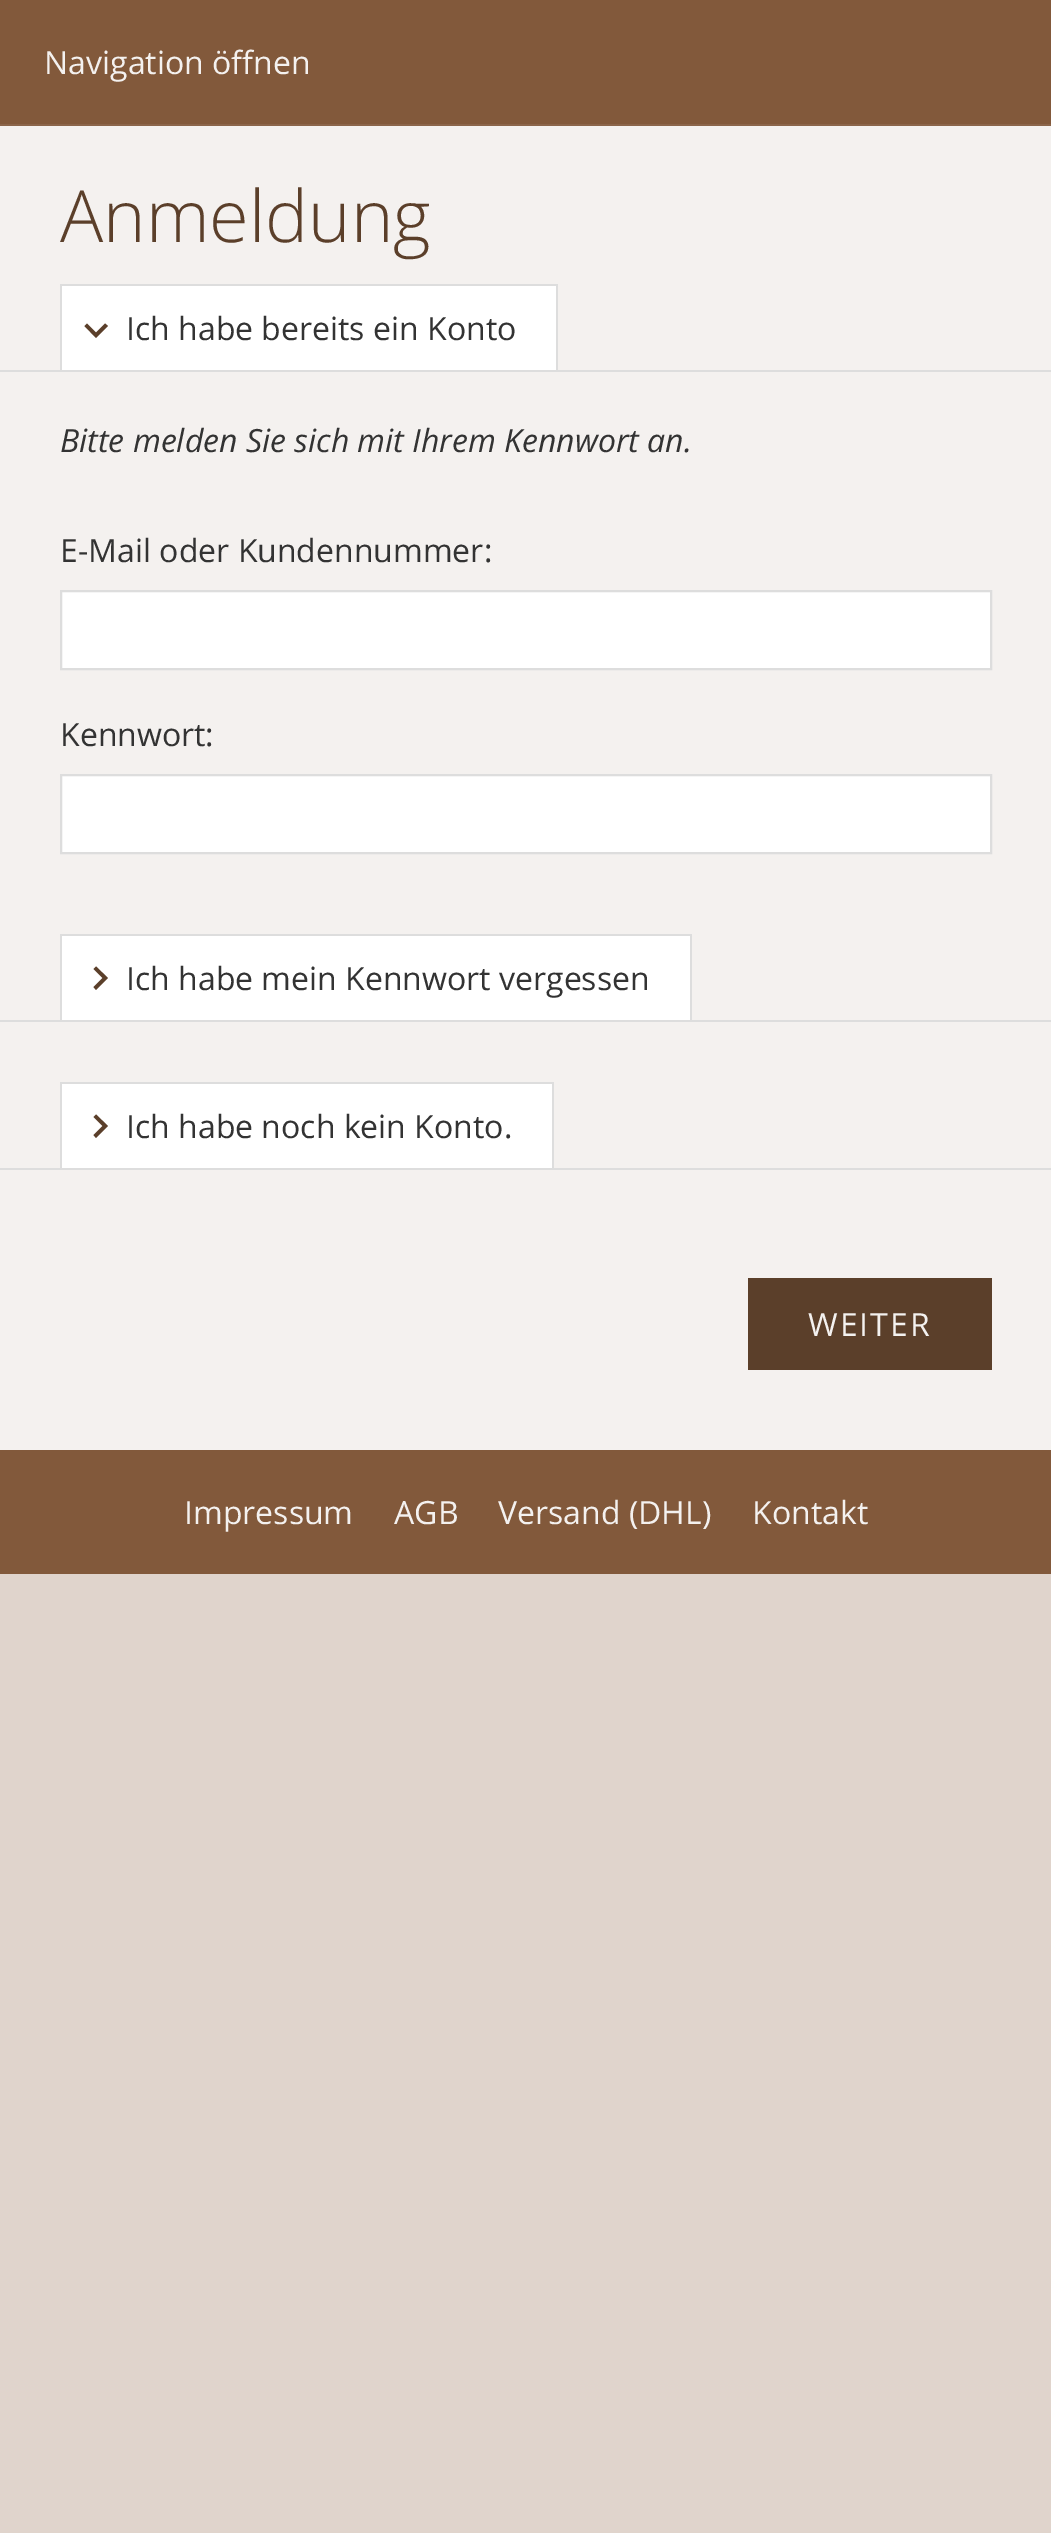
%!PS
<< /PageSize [1051 2533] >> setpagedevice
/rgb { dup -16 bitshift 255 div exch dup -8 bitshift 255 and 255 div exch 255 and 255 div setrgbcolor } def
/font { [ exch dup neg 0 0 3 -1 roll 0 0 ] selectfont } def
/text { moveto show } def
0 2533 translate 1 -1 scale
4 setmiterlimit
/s1 { /OpenSans-Regular 32 font 16#F4F1EF rgb } def
/s2 { /OpenSans-Light 72 font 16#5B3F2A rgb } def
/s3 { /OpenSans-Regular 32 font 16#333333 rgb } def
/s4 { /OpenSans-Italic 32 font 16#333333 rgb } def
16#E0D4CC rgb
0 0 1051 2533 rectfill
16#82593B rgb
0 0 1051 124 rectfill
16#8B654A rgb
0 124 1051 2 rectfill
s1
(Navigation öffnen) 44 74 text
0 126 1051 1324 rectfill
s2
(Anmeldung) 60 242 text
16#DDDDDD rgb
0 370 1051 2 rectfill
16#FFFFFF rgb
62 286 494 84 rectfill
16#5B3F2A rgb
87 323.5 moveto 96 332.5 lineto 105 323.5 lineto 108 326 lineto 96 338 lineto 84.5 326 lineto closepath fill
16#DDDDDD rgb
60 284 498 2 rectfill
556 284 2 86 rectfill
60 284 2 86 rectfill
s3
(Ich habe bereits ein Konto) 126 340 text
s4
(Bitte melden Sie sich mit Ihrem Kennwort an.) 60 452 text
s3
(E-Mail oder Kundennummer:) 60 562 text
16#FFFFFF rgb
61 591 moveto 991 591 lineto 991 669 lineto 61 669 lineto closepath gsave fill grestore
16#DDDDDD rgb
2 setlinewidth
stroke
s3
(Kennwort:) 60 746 text
16#FFFFFF rgb
61 775 moveto 991 775 lineto 991 853 lineto 61 853 lineto closepath gsave fill grestore
16#DDDDDD rgb
stroke
0 1020 1051 2 rectfill
16#FFFFFF rgb
62 936 628 84 rectfill
16#5B3F2A rgb
93.5 987 moveto 102.5 978 lineto 93.5 969 lineto 96 966.5 lineto 108 978 lineto 96 990 lineto closepath fill
16#DDDDDD rgb
60 934 632 2 rectfill
690 934 2 86 rectfill
60 934 2 86 rectfill
s3
(Ich habe mein Kennwort vergessen) 126 990 text
16#DDDDDD rgb
0 1168 1051 2 rectfill
16#FFFFFF rgb
62 1084 490 84 rectfill
16#5B3F2A rgb
93.5 1135 moveto 102.5 1126 lineto 93.5 1117 lineto 96 1114.5 lineto 108 1126 lineto 96 1138 lineto closepath fill
16#DDDDDD rgb
60 1082 494 2 rectfill
552 1082 2 86 rectfill
60 1082 2 86 rectfill
s3
(Ich habe noch kein Konto.) 126 1138 text
16#5B3F2A rgb
748 1278 244 92 rectfill
16#F4F1EF rgb
808 1336 moveto 2 0 (WEITER) ashow
16#82593B rgb
0 1450 1051 124 rectfill
s1
(Impressum) 184 1524 text
(AGB) 394 1524 text
(Versand \(DHL\)) 498 1524 text
(Kontakt) 752 1524 text
showpage
